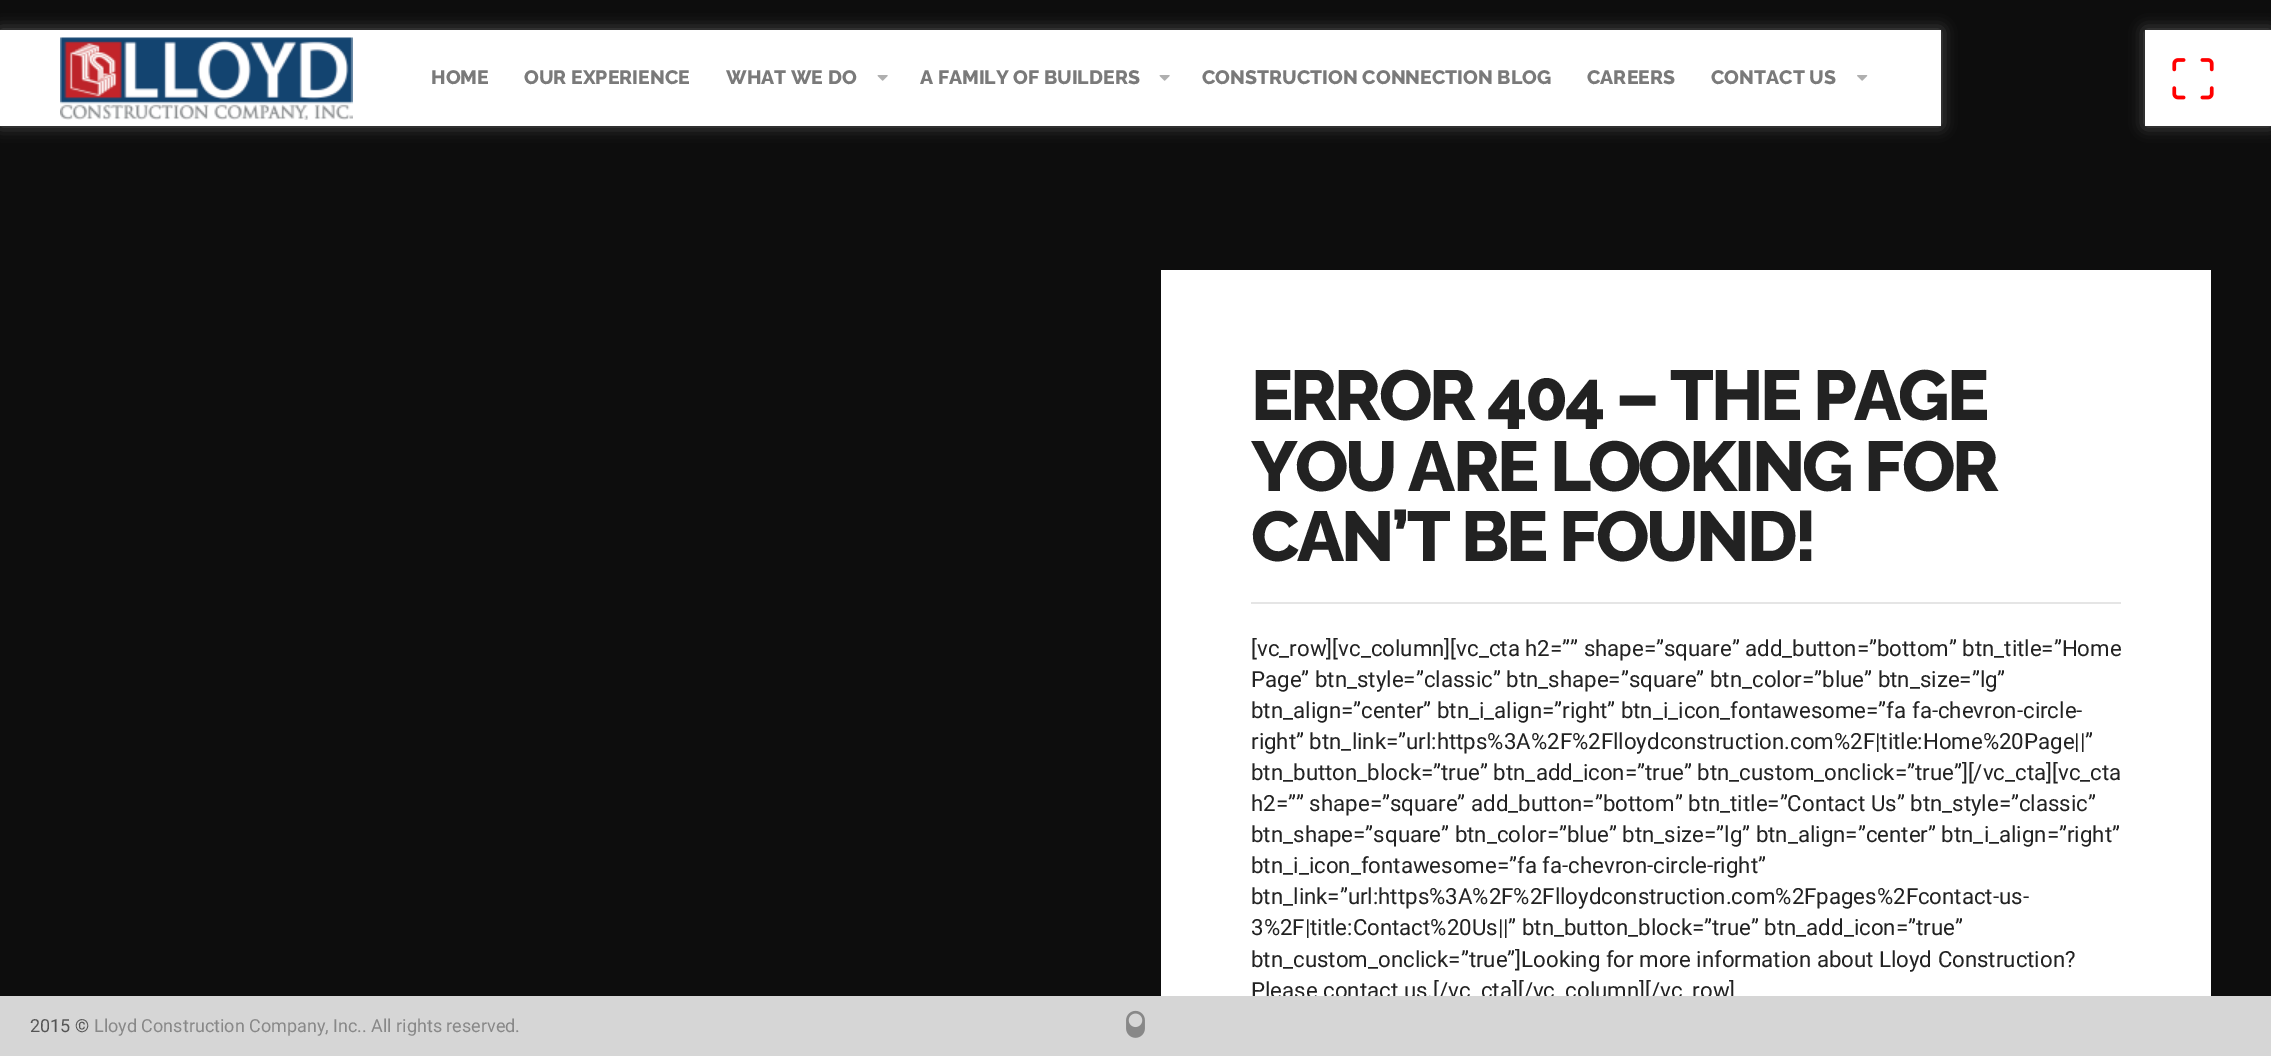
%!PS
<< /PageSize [2271 1056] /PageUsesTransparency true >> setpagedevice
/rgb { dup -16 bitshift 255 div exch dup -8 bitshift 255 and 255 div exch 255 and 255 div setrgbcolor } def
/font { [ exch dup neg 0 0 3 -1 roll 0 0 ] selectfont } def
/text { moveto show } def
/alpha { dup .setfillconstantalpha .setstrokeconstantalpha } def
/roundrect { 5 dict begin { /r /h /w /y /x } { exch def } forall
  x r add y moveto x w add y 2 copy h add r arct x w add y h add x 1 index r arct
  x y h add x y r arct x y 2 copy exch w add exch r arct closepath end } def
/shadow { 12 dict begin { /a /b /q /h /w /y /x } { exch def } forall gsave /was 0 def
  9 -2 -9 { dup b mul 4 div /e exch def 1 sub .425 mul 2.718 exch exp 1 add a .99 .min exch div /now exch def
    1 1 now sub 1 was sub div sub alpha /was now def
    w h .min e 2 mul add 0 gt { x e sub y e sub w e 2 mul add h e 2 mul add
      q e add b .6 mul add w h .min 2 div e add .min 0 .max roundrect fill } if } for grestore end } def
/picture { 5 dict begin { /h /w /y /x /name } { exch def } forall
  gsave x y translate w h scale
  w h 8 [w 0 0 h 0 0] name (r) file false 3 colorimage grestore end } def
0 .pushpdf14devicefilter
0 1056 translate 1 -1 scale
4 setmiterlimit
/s1 { /Raleway-ExtraBold 19.5 font 16#7A7A7A rgb } def
/s2 { /Roboto-Regular 22.25 font 16#222222 rgb } def
/s3 { /Roboto-Regular 18 font 16#555555 rgb } def
/s4 { /Roboto-Regular 18 font 16#888888 rgb } def
16#0D0D0D rgb
0 0 2271 1056 rectfill
16#555555 rgb
0 30 1941 96 0 7.5 1 shadow
16#FFFFFF rgb
0 30 1941 96 rectfill
(pic1.raw) 60 37 293 83 picture
s1
(HOME) 431 84 text
(OUR EXPERIENCE) 524 84 text
(WHAT WE DO) 726 84 text
(pic2.raw) 877 75 11 6 picture
(A FAMILY OF BUILDERS) 920 84 text
(pic2.raw) 1159 75 11 6 picture
(CONSTRUCTION CONNECTION BLOG) 1202 84 text
(CAREERS) 1587 84 text
(CONTACT US) 1711 84 text
(pic3.raw) 1857 75 11 6 picture
16#555555 rgb
2145 30 126 96 0 7.5 1 shadow
16#FFFFFF rgb
2145 30 126 96 rectfill
(pic4.raw) 2172 58 42 42 picture
1161 270 1050 726 rectfill
16#E5E5E5 rgb
1251 602 870 2 rectfill
/Raleway-ExtraBold 70.5 font
16#222222 rgb
1251 420 moveto -3 0 (ERROR 404 – THE PAGE) ashow
1251 491 moveto -3 0 (YOU ARE LOOKING FOR) ashow
1251 561 moveto -3 0 (CAN’T BE FOUND!) ashow
s2
([vc_row][vc_column][vc_cta h2=”” shape=”square” add_button=”bottom” btn_title=”Home) 1251 656 text
(Page” btn_style=”classic” btn_shape=”square” btn_color=”blue” btn_size=”lg”) 1251 687 text
(btn_align=”center” btn_i_align=”right” btn_i_icon_fontawesome=”fa fa-chevron-circle-) 1251 718 text
(right” btn_link=”url:https%3A%2F%2Flloydconstruction.com%2F|title:Home%20Page||”) 1251 749 text
(btn_button_block=”true” btn_add_icon=”true” btn_custom_onclick=”true”][/vc_cta][vc_cta) 1251 780 text
(h2=”” shape=”square” add_button=”bottom” btn_title=”Contact Us” btn_style=”classic”) 1251 811 text
(btn_shape=”square” btn_color=”blue” btn_size=”lg” btn_align=”center” btn_i_align=”right”) 1251 842 text
(btn_i_icon_fontawesome=”fa fa-chevron-circle-right”) 1251 873 text
(btn_link=”url:https%3A%2F%2Flloydconstruction.com%2Fpages%2Fcontact-us-) 1251 904 text
(3%2F|title:Contact%20Us||” btn_button_block=”true” btn_add_icon=”true”) 1251 935 text
(btn_custom_onclick=”true”]Looking for more information about Lloyd Construction?) 1251 967 text
(Please contact us.[/vc_cta][/vc_column][/vc_row]) 1251 998 text
16#D6D6D6 rgb
0 996 2271 60 rectfill
s3
(2015 ©) 30 1032 text
s4
(Lloyd Construction Company, Inc.. All rights reserved.) 94 1032 text
(pic5.raw) 1126 1010 19 28 picture
.poppdf14devicefilter showpage
